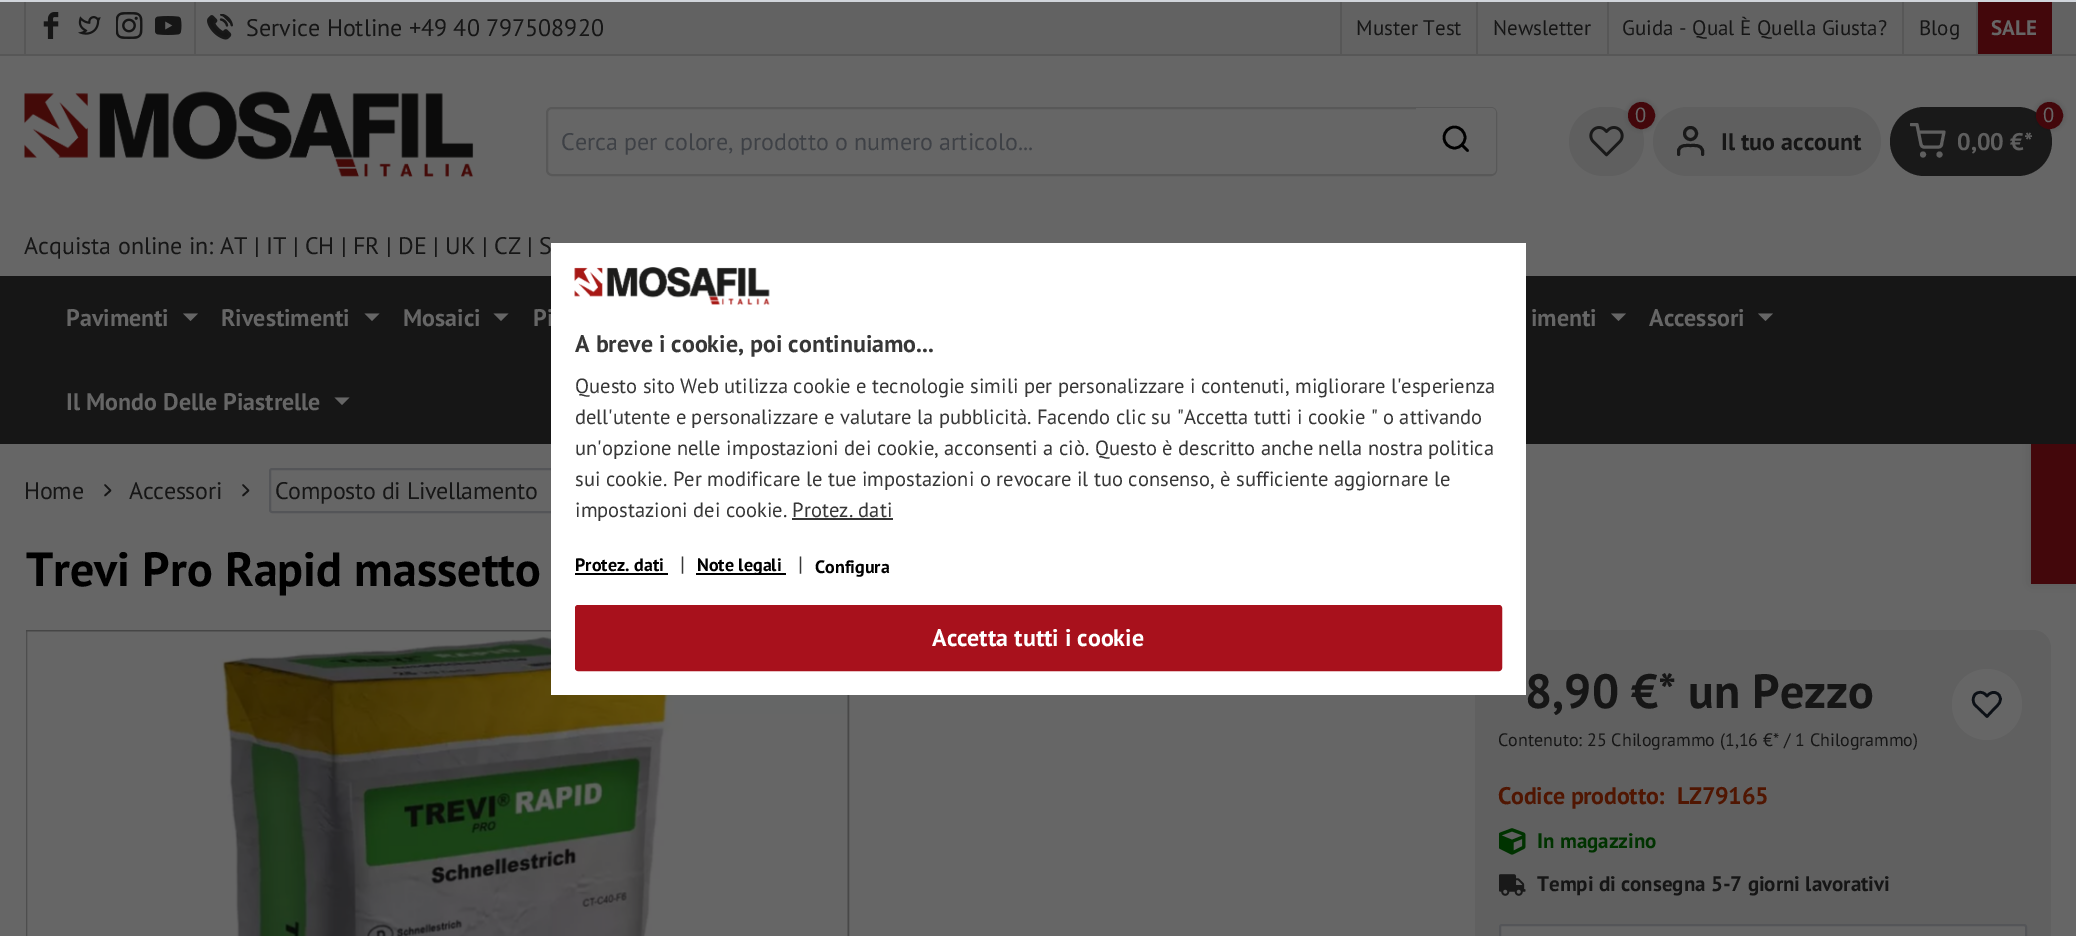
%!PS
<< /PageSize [2076 936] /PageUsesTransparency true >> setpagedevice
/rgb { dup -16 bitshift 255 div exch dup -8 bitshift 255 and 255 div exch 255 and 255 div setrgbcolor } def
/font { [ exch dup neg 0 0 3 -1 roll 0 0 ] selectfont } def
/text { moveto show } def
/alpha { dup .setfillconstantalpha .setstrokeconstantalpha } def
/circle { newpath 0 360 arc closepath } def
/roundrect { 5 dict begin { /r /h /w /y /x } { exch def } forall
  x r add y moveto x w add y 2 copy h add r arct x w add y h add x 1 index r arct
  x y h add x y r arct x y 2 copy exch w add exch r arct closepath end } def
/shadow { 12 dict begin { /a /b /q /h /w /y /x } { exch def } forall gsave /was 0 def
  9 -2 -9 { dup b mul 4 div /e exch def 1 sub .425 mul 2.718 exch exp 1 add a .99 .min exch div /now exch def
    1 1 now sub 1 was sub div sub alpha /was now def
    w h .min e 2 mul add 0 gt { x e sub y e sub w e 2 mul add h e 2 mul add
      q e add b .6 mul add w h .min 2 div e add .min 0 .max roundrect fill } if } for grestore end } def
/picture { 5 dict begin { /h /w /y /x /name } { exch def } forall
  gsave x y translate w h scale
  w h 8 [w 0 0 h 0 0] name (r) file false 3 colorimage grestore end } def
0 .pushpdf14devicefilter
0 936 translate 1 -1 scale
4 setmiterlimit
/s1 { /PTSans-Regular 24 font 16#161616 rgb } def
/s2 { /PTSans-Regular 21 font 16#161616 rgb } def
/s3 { /PTSans-Bold 21 font 16#666666 rgb } def
/s4 { /PTSans-Regular 24 font 16#3E4146 rgb } def
/s5 { /PTSans-Regular 20.55 font 16#666666 rgb } def
/s6 { /PTSans-Bold 24 font 16#161616 rgb } def
/s7 { /PTSans-Bold 24 font 16#5F5F5F rgb } def
/s8 { /PTSans-Bold 24 font 16#666666 rgb } def
/s9 { /PTSans-Bold 24 font 16#373737 rgb } def
/s10 { /PTSans-Regular 20.55 font 16#373737 rgb } def
/s11 { /PTSans-Bold 18 font 16#000000 rgb } def
/s12 { /PTSans-Bold 24 font 16#FFFFFF rgb } def
/s13 { /PTSans-Bold 48 font 16#000000 rgb } def
/s14 { /PTSans-Bold 48 font 16#161616 rgb } def
/s15 { /PTSans-Regular 18 font 16#161616 rgb } def
/s16 { /PTSans-Bold 21 font 16#003300 rgb } def
/s17 { /PTSans-Bold 21 font 16#161616 rgb } def
16#666666 rgb
0 0 2076 936 rectfill
16#626262 rgb
0 2 2076 52 rectfill
16#575757 rgb
0 54 2076 2 rectfill
24 0 2 54 rectfill
(pic1.raw) 43 12 16 27 picture
(pic2.raw) 78 16 23 19 picture
(pic3.raw) 116 12 27 27 picture
(pic4.raw) 155 16 27 19 picture
194 0 2 54 rectfill
(pic5.raw) 207 14 26 26 picture
s1
(Service Hotline +49 40 797508920) 246 36 text
16#575757 rgb
1340 0 2 54 rectfill
s2
(Muster Test) 1356 35 text
16#575757 rgb
1476 0 2 54 rectfill
s2
(Newsletter) 1493 35 text
16#575757 rgb
1607 0 2 54 rectfill
s2
(Guida - Qual È Quella Giusta?) 1622 35 text
16#575757 rgb
1902 0 2 54 rectfill
s2
(Blog) 1919 35 text
16#43070B rgb
1978 2 74 52 rectfill
16#575757 rgb
1976 0 2 54 rectfill
s3
(SALE) 1991 35 text
(pic6.raw) 24 91 450 86 picture
16#585858 rgb
2 setlinewidth
547 108 949 67 5 roundrect stroke
s4
(Cerca per colore, prodotto o numero articolo...) 561 150 text
16#666666 rgb
1416 108 moveto 1491 108 lineto 1494 108 1496 110 1496 113 curveto 1496 169 lineto 1496 172 1494 174 1491 174 curveto 1416 174 lineto closepath fill
16#000000 rgb
2.6 setlinewidth
1454.5 137.5 10.5 circle stroke
1 setlinecap
1 setlinejoin
1467.5 150.5 moveto 1462 145 lineto stroke
16#5F5F5F rgb
1569 107 75 69 34.5 roundrect fill
(pic7.raw) 1589 126 35 31 picture
1653 107 228 69 34.5 roundrect fill
16#000000 rgb
1628 102 27 27 13.5 3 0.17 shadow
16#43070B rgb
1641.5 115.5 12.5 circle gsave fill grestore
2 setlinewidth
0 setlinecap
0 setlinejoin
stroke
s5
(0) 1635 122 text
16#191919 rgb
3 setlinewidth
1 setlinecap
1 setlinejoin
1702.5 154.5 moveto 1702.5 150.5 lineto 1701 144.5 1695 145.5 1690.5 145.5 curveto 1686 145.5 1680 144.5 1678.5 150.5 curveto 1678.5 154.5 lineto stroke
0 setlinecap
0 setlinejoin
1690.5 133.5 6 circle stroke
s6
(Il tuo account) 1721 150 text
16#191919 rgb
1890 107 162 69 34.5 roundrect fill
16#000000 rgb
2036 102 27 27 13.5 3 0.17 shadow
16#43070B rgb
2049.5 115.5 12.5 circle gsave fill grestore
2 setlinewidth
stroke
s5
(0) 2043 122 text
16#5F5F5F rgb
3 setlinewidth
1923 154.5 1.5 circle stroke
1939.5 154.5 1.5 circle stroke
gsave
1910 123 36 36 rectclip
1 setlinecap
1 setlinejoin
1911 124.5 moveto 1917 124.5 lineto 1921 144.5 lineto 1921.5 146 1922.5 147 1924 147 curveto 1938.5 147 lineto 1940 147 1941.5 146 1941.5 144.5 curveto 1944 132 lineto 1918.5 132 lineto stroke
grestore
s7
(0,00 €*) 1957 150 text
s1
(Acquista online in: AT | IT | CH | FR | DE | UK | CZ | S) 24 254 text
16#000000 rgb
2031 353 45 231 0 7.5 0.1 shadow
16#43070B rgb
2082 584 moveto 2031 584 lineto 2031 352 lineto 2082 352 lineto 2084 352 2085 354 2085 355 curveto 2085 581 lineto 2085 582 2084 584 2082 584 curveto closepath fill
16#161616 rgb
0 276 2076 168 rectfill
s8
(Pavimenti) 66 326 text
183 313.5 moveto 198 313.5 lineto 190.5 321 lineto closepath fill
(Rivestimenti) 221 326 text
364.5 313.5 moveto 379.5 313.5 lineto 372 321 lineto closepath fill
(Mosaici) 403 326 text
493.5 313.5 moveto 508.5 313.5 lineto 501 321 lineto closepath fill
(Pi) 533 326 text
(imenti) 1531 326 text
1611 313.5 moveto 1626 313.5 lineto 1618.5 321 lineto closepath fill
(Accessori) 1649 326 text
1758 313.5 moveto 1773 313.5 lineto 1765.5 321 lineto closepath fill
(Il Mondo Delle Piastrelle) 66 410 text
334.5 397.5 moveto 349.5 397.5 lineto 342 405 lineto closepath fill
16#D1D5DB rgb
0 0 2076 2 rectfill
16#545558 rgb
2 setlinewidth
270 469 391 43 2 roundrect stroke
16#464646 rgb
27 631 821 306 rectstroke
(pic9.raw) 26 631 823 305 picture
16#606060 rgb
1475 630 576 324 18 roundrect fill
16#FFFFFF rgb
551 243 975 452 rectfill
(pic8.raw) 574 267 196 38 picture
s9
(A breve i cookie, poi continuiamo...) 575 352 text
s10
(Questo sito Web utilizza cookie e tecnologie simili per personalizzare i contenuti, migliorare l'esperienza) 575 393 text
(dell'utente e personalizzare e valutare la pubblicità. Facendo clic su "Accetta tutti i cookie " o attivando) 575 424 text
(un'opzione nelle impostazioni dei cookie, acconsenti a ciò. Questo è descritto anche nella nostra politica) 575 455 text
(sui cookie. Per modificare le tue impostazioni o revocare il tuo consenso, è sufficiente aggiornare le) 575 486 text
(impostazioni dei cookie. Protez. dati) 575 517 text
792 518 101 2 rectfill
s11
(Protez. dati) 575 571 text
575 573 93 2 rectfill
s10
(|) 680 571 text
16#000000 rgb
696 573 90 2 rectfill
s11
(Note legali) 697 571 text
s10
(|) 798 571 text
s11
(Configura) 815 573 text
16#A8111C rgb
576 606 925 64 2 roundrect gsave fill grestore
stroke
s12
(Accetta tutti i cookie) 932 646 text
/PTSans-Regular 24 font
16#161616 rgb
24 499 moveto -0.3 0 (Home) ashow
1.7 setlinewidth
1 setlinecap
1 setlinejoin
105 495.5 moveto 110.5 490.5 lineto 105 485 lineto stroke
129 499 moveto -0.3 0 (Accessori) ashow
243 495.5 moveto 248.5 490.5 lineto 243 485 lineto stroke
275 499 moveto -0.3 0 (Composto di Livellamento) ashow
s13
(Trevi Pro Rapid massetto) 26 586 text
s14
(8,90 €* un Pezzo) 1525 708 text
s15
(Contenuto: 25 Chilogrammo \(1,16 €* / 1 Chilogrammo\)) 1498 746 text
/PTSans-Bold 24 font
16#501602 rgb
1498 804 moveto -0.25 0 (Codice prodotto:) ashow
1677 804 moveto -0.25 0 (LZ79165) ashow
(pic10.raw) 1499 828 27 27 picture
s16
(In magazzino) 1537 848 text
(pic11.raw) 1499 874 27 22 picture
s17
(Tempi di consegna 5-7 giorni lavorativi) 1537 891 text
16#666666 rgb
1952 669 70 71 35 roundrect fill
16#0C1016 rgb
2.6 setlinewidth
1998.5 694.5 moveto 1994.5 690.5 1990 692.5 1987 696 curveto 1985.5 694.5 lineto 1982.5 691.5 1978 691.5 1975 694.5 curveto 1972.5 697.5 1972.5 702 1975 705 curveto 1987 716.5 lineto 1993.5 709.5 lineto 1997.5 705.5 2004 700.5 1998.5 694.5 curveto closepath stroke
16#666666 rgb
1500 926 525 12 1.5 roundrect fill
16#545558 rgb
2 setlinewidth
0 setlinecap
0 setlinejoin
1500 925 526 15 2 roundrect stroke
.poppdf14devicefilter showpage
